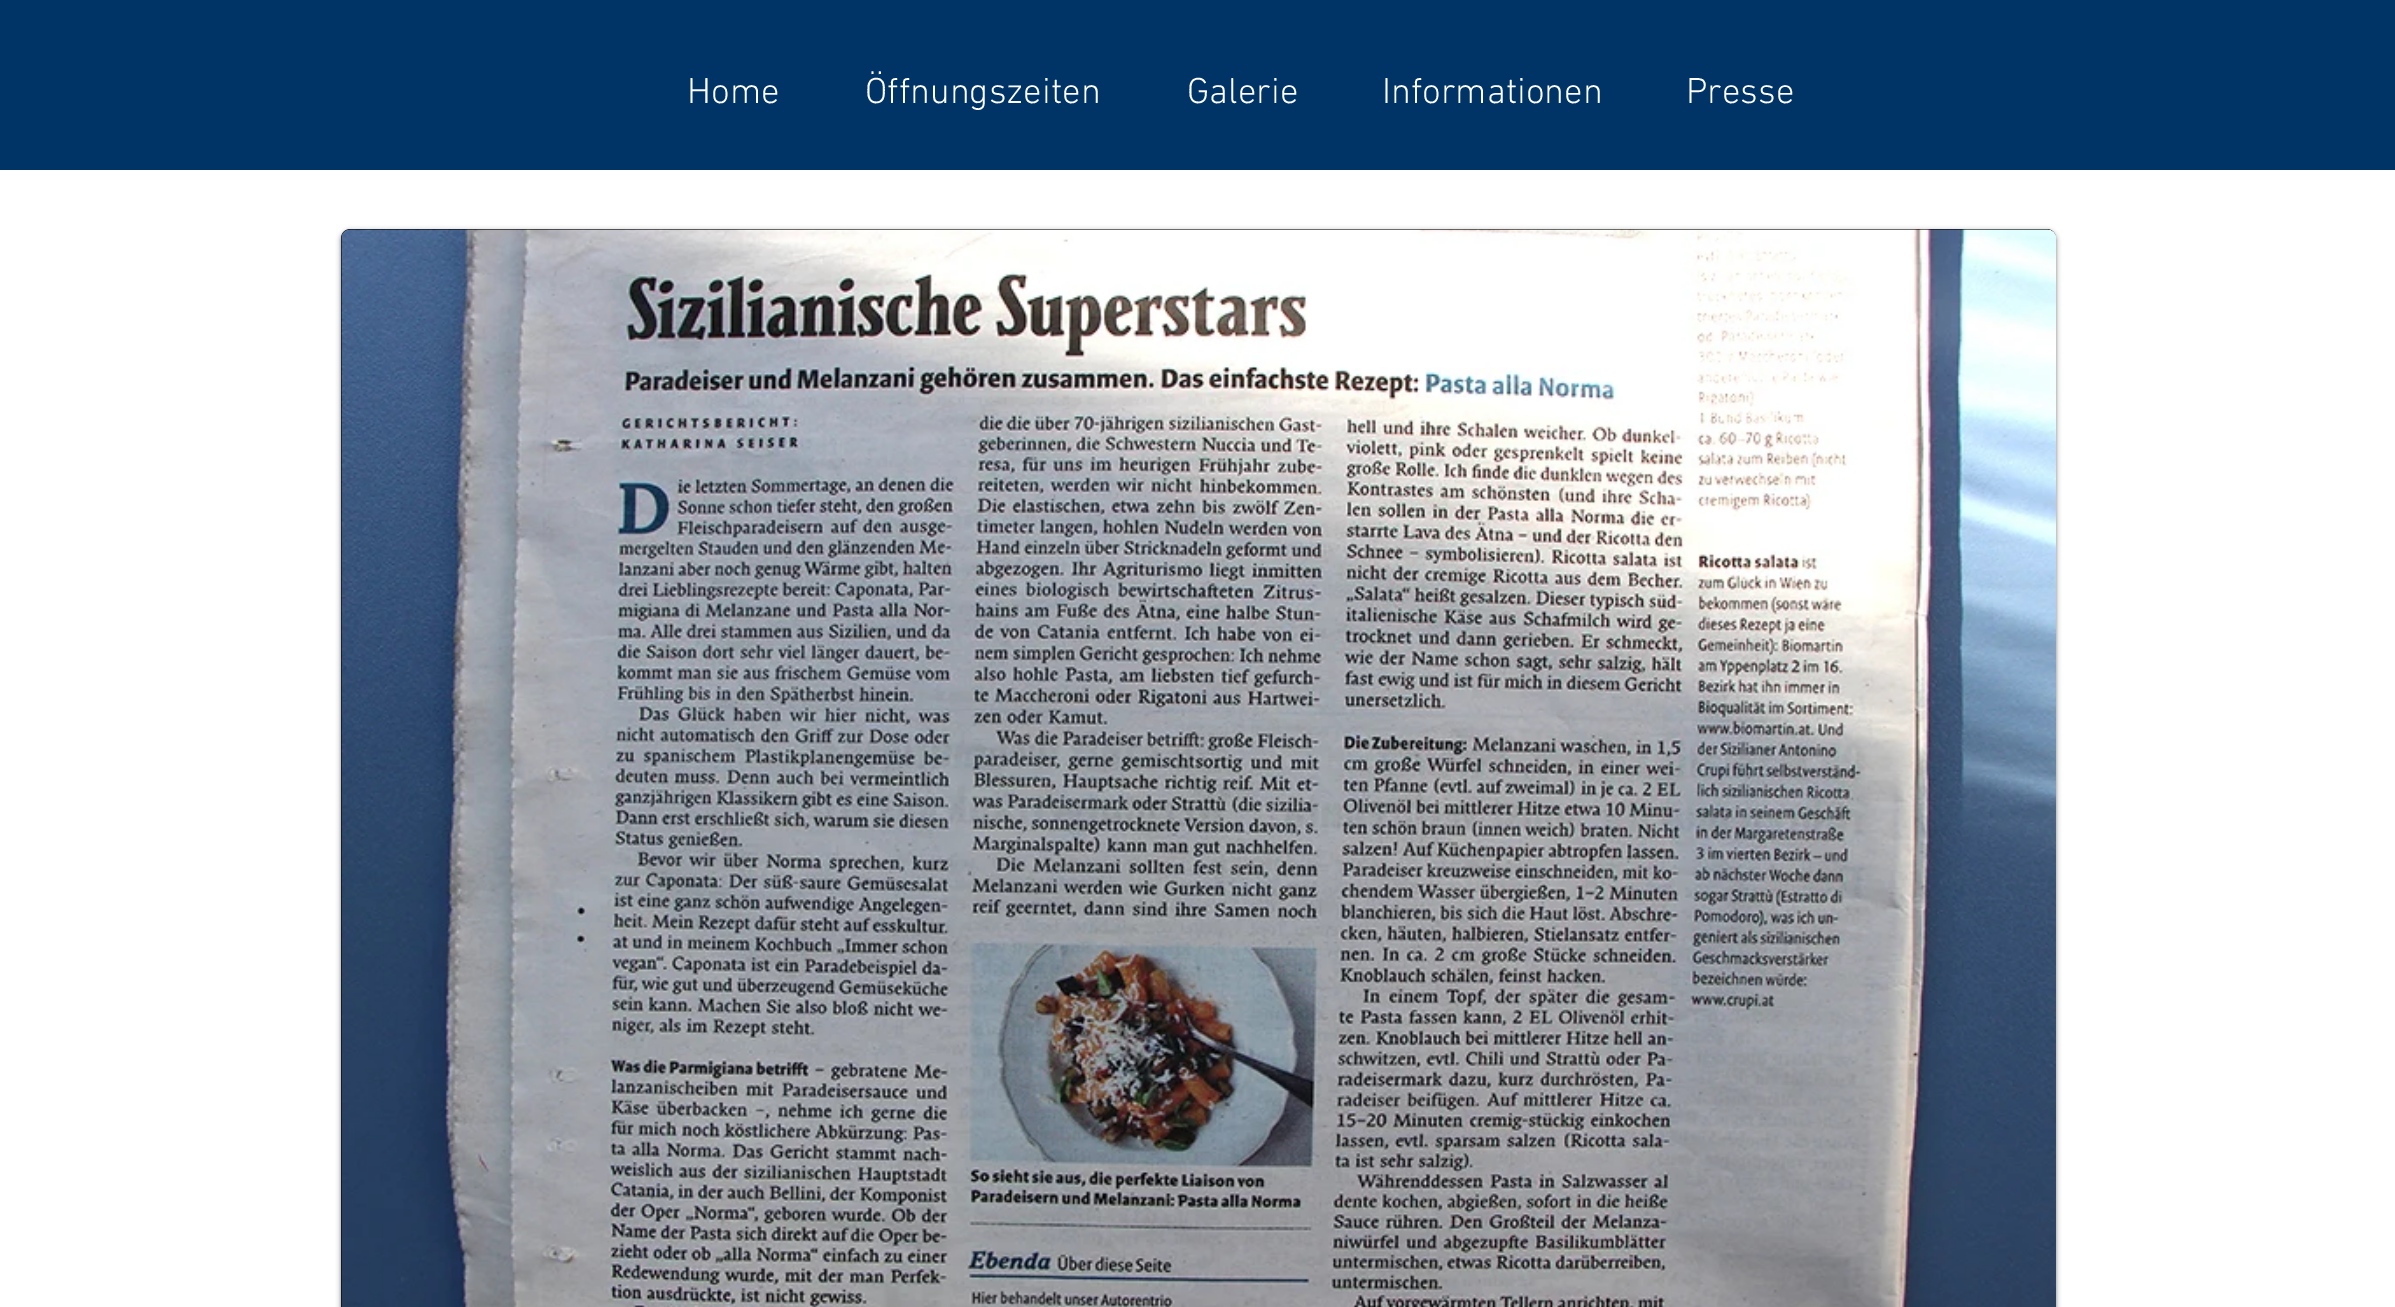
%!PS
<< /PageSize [2395 1307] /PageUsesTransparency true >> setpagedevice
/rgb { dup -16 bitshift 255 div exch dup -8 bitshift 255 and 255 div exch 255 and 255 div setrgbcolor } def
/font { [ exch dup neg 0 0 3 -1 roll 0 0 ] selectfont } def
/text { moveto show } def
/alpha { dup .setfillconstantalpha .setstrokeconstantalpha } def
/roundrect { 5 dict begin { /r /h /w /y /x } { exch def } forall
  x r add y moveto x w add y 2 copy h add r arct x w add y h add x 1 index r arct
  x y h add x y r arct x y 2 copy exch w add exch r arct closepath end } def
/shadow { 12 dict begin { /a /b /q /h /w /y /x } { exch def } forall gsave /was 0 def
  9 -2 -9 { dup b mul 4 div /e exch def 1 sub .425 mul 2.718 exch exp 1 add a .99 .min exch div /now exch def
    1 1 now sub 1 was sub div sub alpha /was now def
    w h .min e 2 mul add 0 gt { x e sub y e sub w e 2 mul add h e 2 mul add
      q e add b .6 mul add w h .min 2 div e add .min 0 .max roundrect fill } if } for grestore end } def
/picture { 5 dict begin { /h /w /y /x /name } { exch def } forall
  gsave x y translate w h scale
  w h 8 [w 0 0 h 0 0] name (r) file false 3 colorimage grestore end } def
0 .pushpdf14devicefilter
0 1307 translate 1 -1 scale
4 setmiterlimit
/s1 { /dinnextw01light-Light 36.75 font 16#FFFFFF rgb } def
16#FFFFFF rgb
0 0 2395 1307 rectfill
16#003366 rgb
0 0 2395 170 rectfill
s1
(Home) 687 103 text
(Öffnungszeiten) 865 103 text
(Galerie) 1187 103 text
(Informationen) 1382 103 text
(Presse) 1686 103 text
16#000000 rgb
341 231 1715 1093 9 2.5 0.5 shadow
341 229 1715 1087 9 roundrect fill
(pic1.raw) 341 229 1715 1078 picture
.poppdf14devicefilter showpage
